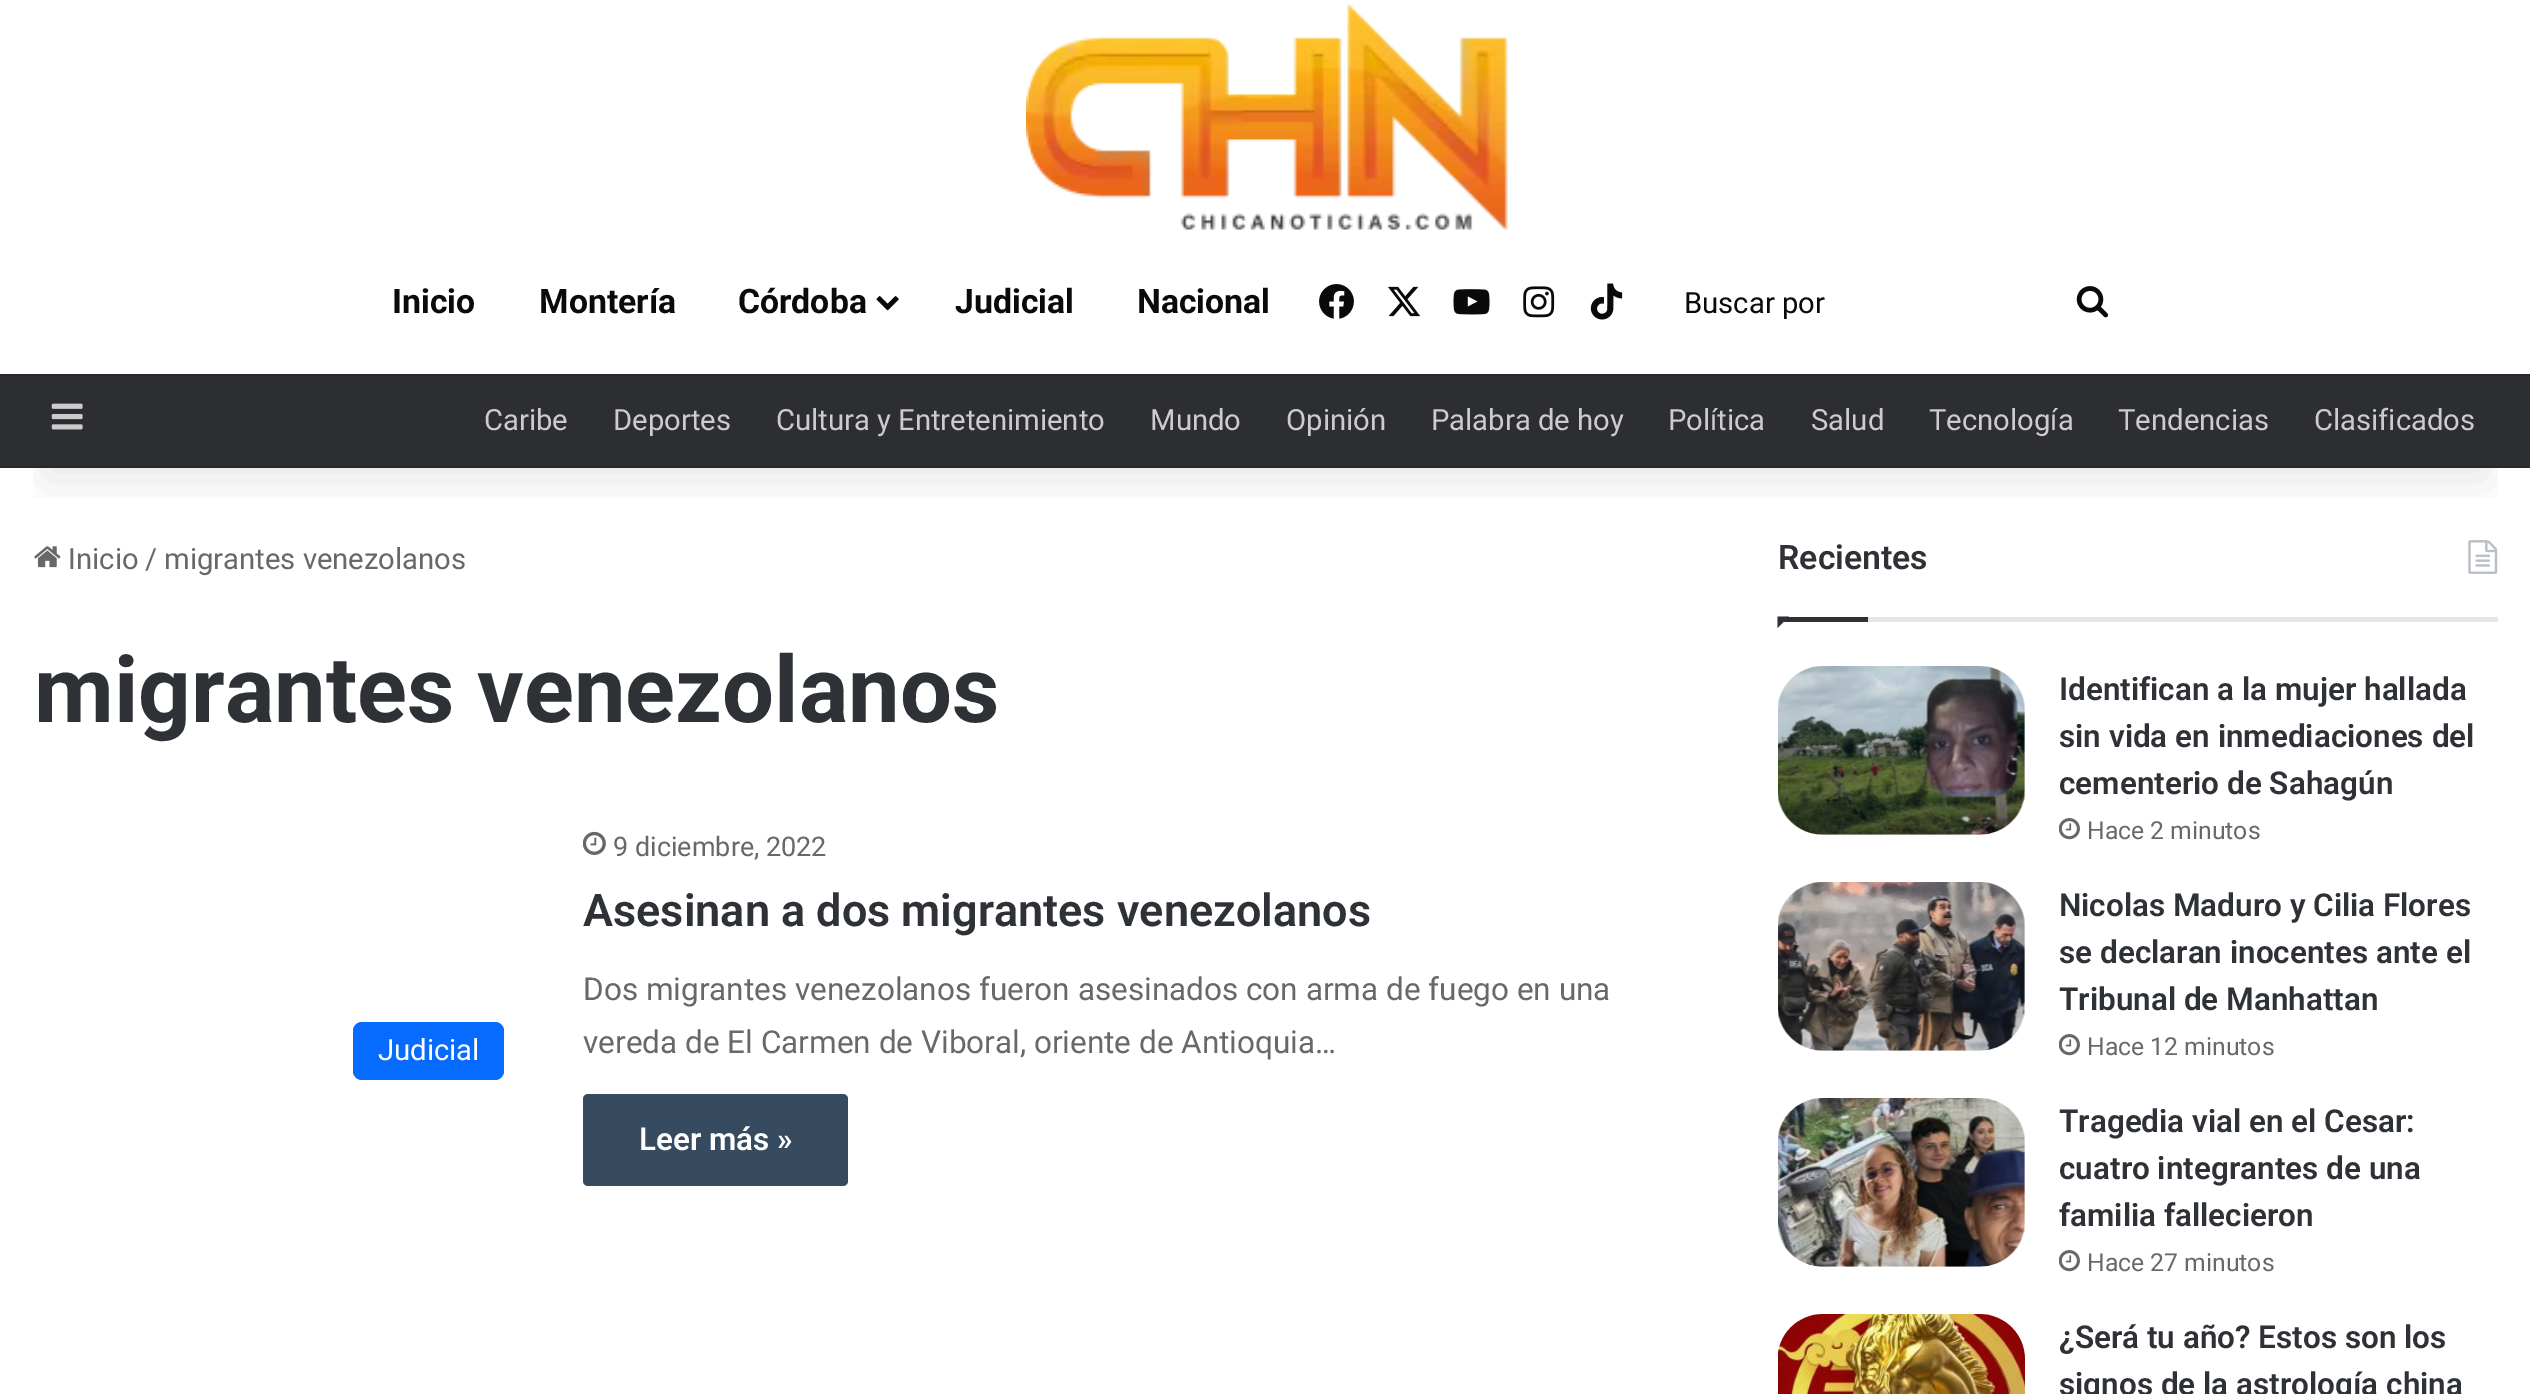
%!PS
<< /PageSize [2530 1394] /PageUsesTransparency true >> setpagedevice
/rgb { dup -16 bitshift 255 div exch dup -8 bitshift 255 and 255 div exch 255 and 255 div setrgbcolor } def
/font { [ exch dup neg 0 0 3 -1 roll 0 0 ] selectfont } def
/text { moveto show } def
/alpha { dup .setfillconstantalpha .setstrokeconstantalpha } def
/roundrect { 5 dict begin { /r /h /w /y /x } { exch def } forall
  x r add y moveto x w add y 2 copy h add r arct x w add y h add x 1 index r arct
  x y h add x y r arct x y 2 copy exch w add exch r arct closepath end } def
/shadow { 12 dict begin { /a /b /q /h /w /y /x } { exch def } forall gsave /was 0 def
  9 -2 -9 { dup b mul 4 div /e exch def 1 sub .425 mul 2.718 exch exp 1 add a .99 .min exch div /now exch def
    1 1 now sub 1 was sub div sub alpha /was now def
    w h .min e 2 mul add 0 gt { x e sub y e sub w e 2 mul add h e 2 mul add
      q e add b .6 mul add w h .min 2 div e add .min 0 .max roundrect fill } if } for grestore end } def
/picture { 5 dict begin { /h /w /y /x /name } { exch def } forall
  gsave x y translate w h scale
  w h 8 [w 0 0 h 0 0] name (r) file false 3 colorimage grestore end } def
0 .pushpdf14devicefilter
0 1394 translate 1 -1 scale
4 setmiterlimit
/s1 { /Roboto-Bold 33.75 font 16#0A0A0A rgb } def
/s2 { /Roboto-Regular 29.25 font 16#0A0A0A rgb } def
/s3 { /Roboto-Regular 29.25 font 16#CCCCCC rgb } def
/s4 { /Roboto-Regular 29.25 font 16#686868 rgb } def
/s5 { /Roboto-Bold 92.25 font 16#2E3136 rgb } def
/s6 { /Roboto-Regular 29.25 font 16#FFFFFF rgb } def
/s7 { /Roboto-Regular 27 font 16#686868 rgb } def
/s8 { /Roboto-SemiBold 45 font 16#2E3136 rgb } def
/s9 { /Roboto-Regular 31.5 font 16#686868 rgb } def
/s10 { /Roboto-SemiBold 31.5 font 16#FFFFFF rgb } def
/s11 { /Roboto-SemiBold 33.75 font 16#2E3136 rgb } def
/s12 { /Roboto-SemiBold 31.5 font 16#2E3136 rgb } def
/s13 { /Roboto-Regular 24.75 font 16#686868 rgb } def
16#FFFFFF rgb
0 0 2530 1394 rectfill
(pic10.raw) 34 546 27 22 picture
(pic12.raw) 2468 540 30 34 picture
gsave
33 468 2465 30 rectclip
16#000000 rgb
45 101 2441 378 0 22.5 0.1 shadow
grestore
(pic1.raw) 1026 4 482 226 picture
s1
(Inicio) 392 313 text
(Montería) 539 313 text
(Córdoba) 738 313 text
(pic2.raw) 876 296 23 15 picture
(Judicial) 955 313 text
(Nacional) 1137 313 text
(pic3.raw) 1319 284 35 35 picture
(pic4.raw) 1388 286 33 31 picture
(pic5.raw) 1453 289 37 26 picture
(pic6.raw) 1523 286 32 32 picture
(pic7.raw) 1590 283 33 37 picture
s2
(Buscar por) 1684 313 text
(pic8.raw) 2076 286 33 32 picture
16#2C2E32 rgb
0 376 2530 90 rectfill
16#28292D rgb
0 374 2530 2 rectfill
0 466 2530 2 rectfill
(pic9.raw) 51 403 32 27 picture
s3
(Caribe) 484 430 text
(Deportes) 613 430 text
(Cultura y Entretenimiento) 776 430 text
(Mundo) 1150 430 text
(Opinión) 1286 430 text
(Palabra de hoy) 1431 430 text
(Política) 1668 430 text
(Salud) 1811 430 text
(Tecnología) 1929 430 text
(Tendencias) 2118 430 text
(Clasificados) 2314 430 text
s4
(Inicio) 68 569 text
(/) 145 569 text
(migrantes venezolanos) 164 569 text
s5
(migrantes venezolanos) 34 722 text
16#086BFF rgb
353 1022 151 58 9 roundrect fill
s6
(Judicial) 378 1060 text
(pic11.raw) 583 831 23 24 picture
s7
(9 diciembre, 2022) 613 856 text
s8
(Asesinan a dos migrantes venezolanos) 583 926 text
s9
(Dos migrantes venezolanos fueron asesinados con arma de fuego en una) 583 1000 text
(vereda de El Carmen de Viboral, oriente de Antioquia…) 583 1053 text
16#364B60 rgb
583 1094 265 92 5 roundrect fill
s10
(Leer más ») 639 1150 text
16#E6E6E6 rgb
1868 617 630 5 rectfill
s11
(Recientes) 1778 569 text
1777.5 616.5 moveto 1789 616.5 lineto 1777.5 628 lineto closepath fill
1778 617 90 5 rectfill
(pic13.raw) 1778 666 247 169 picture
s12
(Identifican a la mujer hallada) 2059 700 text
(sin vida en inmediaciones del) 2059 747 text
(cementerio de Sahagún) 2059 794 text
(pic14.raw) 2059 818 21 22 picture
s13
(Hace 2 minutos) 2087 839 text
(pic15.raw) 1778 882 247 169 picture
s12
(Nicolas Maduro y Cilia Flores) 2059 916 text
(se declaran inocentes ante el) 2059 963 text
(Tribunal de Manhattan) 2059 1010 text
(pic14.raw) 2059 1034 21 22 picture
s13
(Hace 12 minutos) 2087 1055 text
(pic16.raw) 1778 1098 247 169 picture
s12
(Tragedia vial en el Cesar:) 2059 1132 text
(cuatro integrantes de una) 2059 1179 text
(familia fallecieron) 2059 1226 text
(pic14.raw) 2059 1250 21 22 picture
s13
(Hace 27 minutos) 2087 1271 text
(pic17.raw) 1778 1314 247 80 picture
s12
(¿Será tu año? Estos son los) 2059 1348 text
(signos de la astrología china) 2059 1395 text
.poppdf14devicefilter showpage
